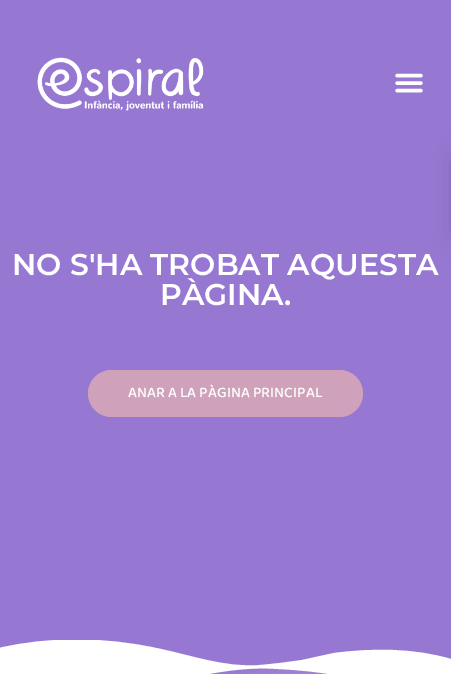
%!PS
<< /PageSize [451 674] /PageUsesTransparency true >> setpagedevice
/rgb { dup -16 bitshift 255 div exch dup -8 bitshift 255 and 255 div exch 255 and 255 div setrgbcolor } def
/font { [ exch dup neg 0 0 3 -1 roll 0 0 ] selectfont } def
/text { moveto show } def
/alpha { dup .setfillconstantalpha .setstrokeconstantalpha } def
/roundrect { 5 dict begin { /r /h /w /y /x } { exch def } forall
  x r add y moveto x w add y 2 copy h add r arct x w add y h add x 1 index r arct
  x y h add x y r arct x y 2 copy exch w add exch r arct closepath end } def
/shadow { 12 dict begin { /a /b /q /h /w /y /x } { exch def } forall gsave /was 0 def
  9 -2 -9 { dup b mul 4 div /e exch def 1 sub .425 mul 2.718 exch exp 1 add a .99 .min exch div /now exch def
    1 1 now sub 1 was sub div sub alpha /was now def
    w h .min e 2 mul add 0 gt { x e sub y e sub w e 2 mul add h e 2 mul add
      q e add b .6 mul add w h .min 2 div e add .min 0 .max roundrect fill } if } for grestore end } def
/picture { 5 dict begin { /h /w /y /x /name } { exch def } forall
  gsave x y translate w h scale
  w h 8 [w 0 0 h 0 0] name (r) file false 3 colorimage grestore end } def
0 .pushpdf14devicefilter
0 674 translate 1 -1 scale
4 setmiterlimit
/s1 { /Montserrat-SemiBold 30 font 16#FFFFFF rgb } def
/s2 { /Baloo2-Medium 15 font 16#FFFFFF rgb } def
16#9678D3 rgb
0 0 451 674 rectfill
(pic1.raw) 37 57 167 54 picture
(pic2.raw) 395 73 28 20 picture
16#000000 rgb
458 160 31 73 0 12.5 0.23 shadow
s1
(NO S'HA TROBAT AQUESTA) 12 275 text
(PÀGINA.) 160 305 text
16#D0A1BA rgb
88 370 275 47 23.5 roundrect fill
s2
(ANAR A LA PÀGINA PRINCIPAL) 128 397 text
gsave
0 640 451 28 rectclip
260 665 moveto 225 668 191 655 156 648 curveto 105 637 50 636 -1 648 curveto -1 667 lineto 451 667 lineto 451 659 lineto 414 648 372 648 334 653 curveto 302 660 lineto 288 662 274 664 260 665 curveto closepath fill
grestore
(pic3.raw) 208 668 121 6 picture
278 669 moveto 225 665 174 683 122 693 curveto 45 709 -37 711 -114 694 curveto -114 666 lineto 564 666 lineto 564 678 lineto 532 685 lineto 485 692 436 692 388 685 curveto 372 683 356 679 340 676 curveto 320 672 299 670 278 669 curveto closepath fill
.poppdf14devicefilter showpage
